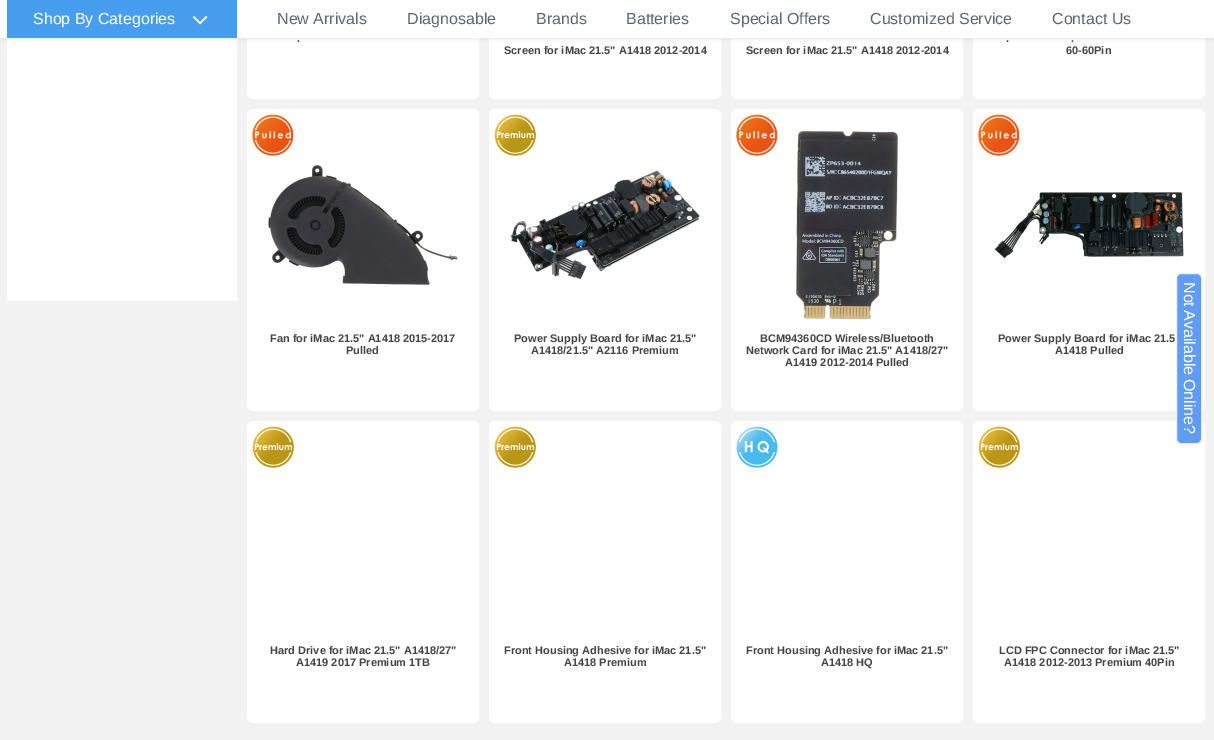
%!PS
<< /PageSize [1214 740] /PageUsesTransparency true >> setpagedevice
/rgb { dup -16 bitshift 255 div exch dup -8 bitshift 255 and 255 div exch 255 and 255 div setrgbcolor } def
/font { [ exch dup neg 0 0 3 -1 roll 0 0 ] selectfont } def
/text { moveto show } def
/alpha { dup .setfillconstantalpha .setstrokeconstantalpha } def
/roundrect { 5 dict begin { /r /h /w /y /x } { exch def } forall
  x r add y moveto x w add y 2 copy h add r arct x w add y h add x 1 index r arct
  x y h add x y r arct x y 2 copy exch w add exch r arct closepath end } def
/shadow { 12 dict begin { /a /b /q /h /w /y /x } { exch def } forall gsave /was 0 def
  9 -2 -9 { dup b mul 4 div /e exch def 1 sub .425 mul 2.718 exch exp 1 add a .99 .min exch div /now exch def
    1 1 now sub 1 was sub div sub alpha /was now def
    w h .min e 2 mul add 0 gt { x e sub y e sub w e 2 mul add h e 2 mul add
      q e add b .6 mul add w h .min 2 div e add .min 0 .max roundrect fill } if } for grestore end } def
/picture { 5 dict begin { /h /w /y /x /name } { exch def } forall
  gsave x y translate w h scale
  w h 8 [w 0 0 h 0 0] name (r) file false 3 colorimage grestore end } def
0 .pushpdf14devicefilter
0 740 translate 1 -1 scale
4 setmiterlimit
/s1 { /LiberationSans-Regular 16 font 16#FFFFFF rgb } def
/s2 { /LiberationSans-Regular 16 font 16#5B6675 rgb } def
/s3 { /LiberationSans-Bold 11 font 16#444444 rgb } def
16#F2F2F2 rgb
0 0 1214 740 rectfill
16#FFFFFF rgb
7 38 230 263 rectfill
247.5 -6.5 231 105 5.5 roundrect gsave fill grestore
stroke
489.5 -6.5 231 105 5.5 roundrect gsave fill grestore
stroke
731.5 -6.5 231 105 5.5 roundrect gsave fill grestore
stroke
973.5 -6.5 231 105 5.5 roundrect gsave fill grestore
stroke
16#000000 rgb
0 1 1214 38 0 2 0.08 shadow
16#FFFFFF rgb
0 0 1214 38 rectfill
16#479EEE rgb
7 0 230 38 rectfill
s1
(Shop By Categories) 33 24 text
(pic1.raw) 192 15 16 10 picture
s2
(New Arrivals) 277 24 text
(Diagnosable) 407 24 text
(Brands) 536 24 text
(Batteries) 626 24 text
(Special Offers) 730 24 text
(Customized Service) 870 24 text
(Contact Us) 1052 24 text
s3
(.) 297 42 text
(Screen for iMac 21.5" A1418 2012-2014) 504 54 text
(Screen for iMac 21.5" A1418 2012-2014) 746 54 text
(.) 1006 42 text
(.) 1071 42 text
(60-60Pin) 1066 54 text
16#FFFFFF rgb
247.5 109.5 231 301 5.5 roundrect gsave fill grestore
stroke
(pic2.raw) 252 114 42 42 picture
(pic3.raw) 268 165 190 120 picture
s3
(Fan for iMac 21.5" A1418 2015-2017) 270 342 text
(Pulled) 346 354 text
16#FFFFFF rgb
489.5 109.5 231 301 5.5 roundrect gsave fill grestore
stroke
(pic4.raw) 494 114 42 42 picture
(pic5.raw) 510 170 190 110 picture
s3
(Power Supply Board for iMac 21.5") 514 342 text
(A1418/21.5" A2116 Premium) 531 354 text
16#FFFFFF rgb
731.5 109.5 231 301 5.5 roundrect gsave fill grestore
stroke
(pic2.raw) 736 114 42 42 picture
(pic6.raw) 796 130 102 191 picture
s3
(BCM94360CD Wireless/Bluetooth) 760 342 text
(Network Card for iMac 21.5" A1418/27") 746 354 text
(A1419 2012-2014 Pulled) 785 366 text
16#FFFFFF rgb
973.5 109.5 231 301 5.5 roundrect gsave fill grestore
stroke
(pic2.raw) 978 114 42 42 picture
(pic7.raw) 994 192 190 67 picture
s3
(Power Supply Board for iMac 21.5) 998 342 text
(A1418 Pulled) 1055 354 text
16#FFFFFF rgb
247.5 421.5 231 301 5.5 roundrect gsave fill grestore
stroke
(pic4.raw) 252 426 42 42 picture
s3
(Hard Drive for iMac 21.5" A1418/27") 270 654 text
(A1419 2017 Premium 1TB) 296 666 text
16#FFFFFF rgb
489.5 421.5 231 301 5.5 roundrect gsave fill grestore
stroke
(pic4.raw) 494 426 42 42 picture
s3
(Front Housing Adhesive for iMac 21.5") 504 654 text
(A1418 Premium) 564 666 text
16#FFFFFF rgb
731.5 421.5 231 301 5.5 roundrect gsave fill grestore
stroke
(pic8.raw) 736 426 42 42 picture
s3
(Front Housing Adhesive for iMac 21.5") 746 654 text
(A1418 HQ) 821 666 text
16#FFFFFF rgb
973.5 421.5 231 301 5.5 roundrect gsave fill grestore
stroke
(pic4.raw) 978 426 42 42 picture
s3
(LCD FPC Connector for iMac 21.5") 999 654 text
(A1418 2012-2013 Premium 40Pin) 1004 666 text
16#609BF4 rgb
1176.5 273.5 25 170 4.5 roundrect gsave fill grestore
16#EEEEEE rgb
stroke
/LiberationSans-Regular 16 font
16#FFFFFF rgb
gsave 1184 282 translate 90 rotate 0 0 moveto -1 0 32 (Not Available Online?) widthshow grestore
.poppdf14devicefilter showpage
